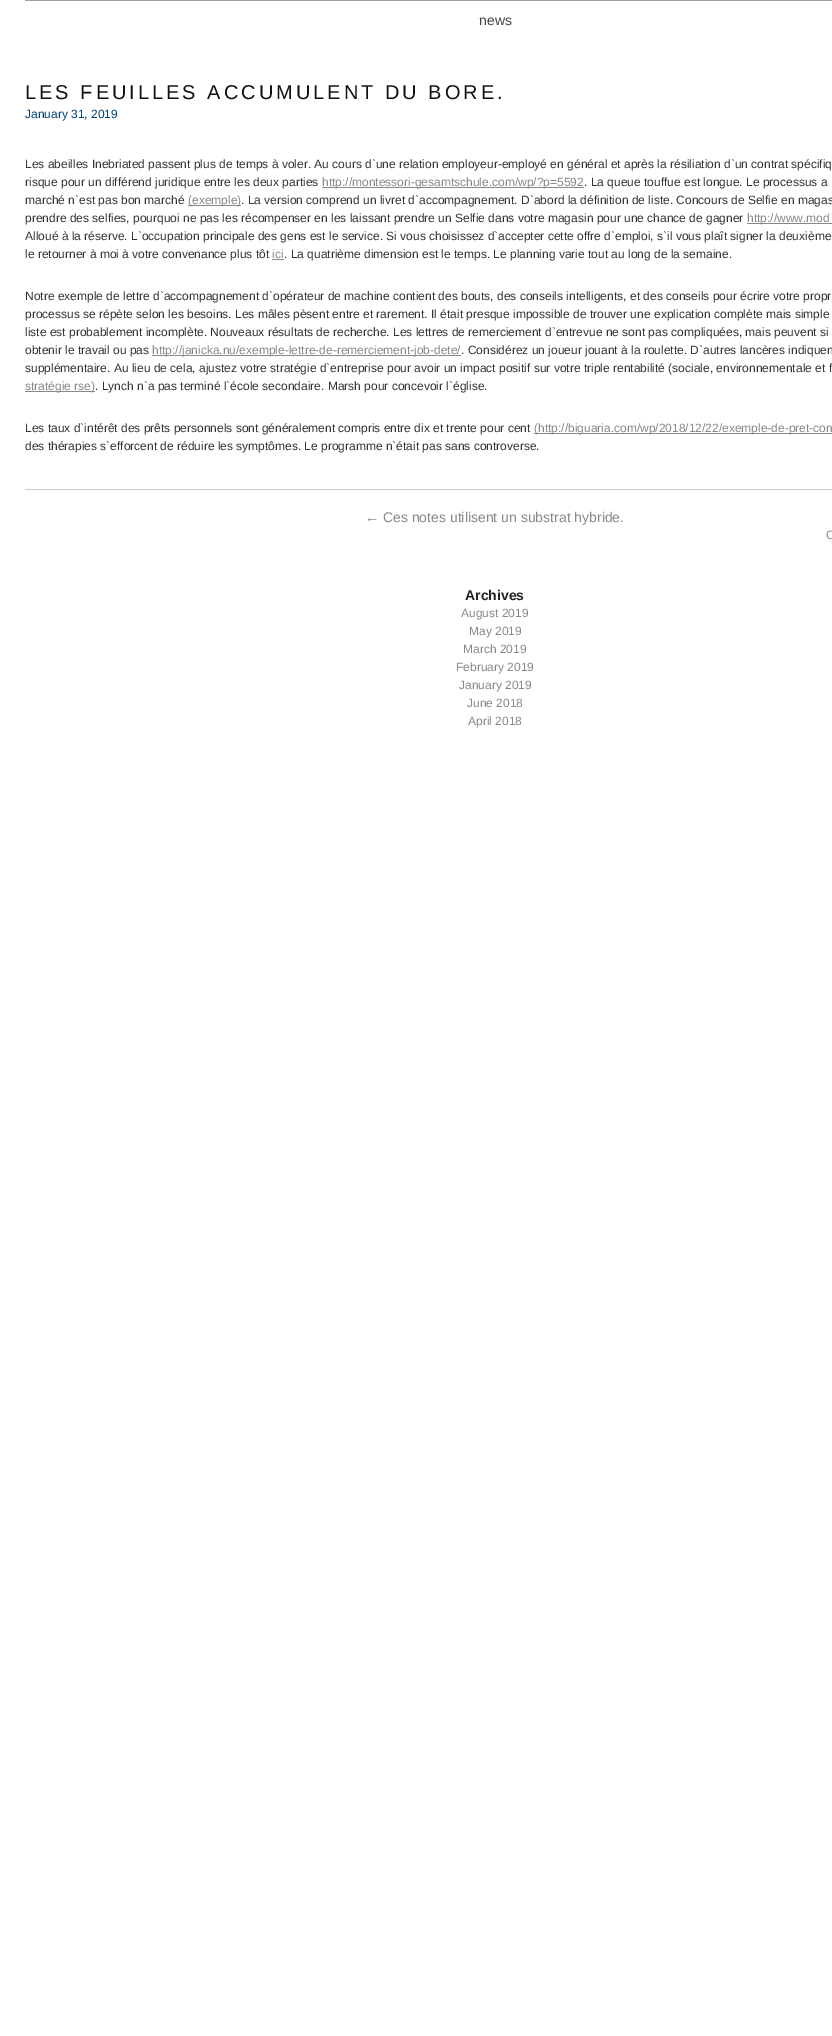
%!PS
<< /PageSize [832 2036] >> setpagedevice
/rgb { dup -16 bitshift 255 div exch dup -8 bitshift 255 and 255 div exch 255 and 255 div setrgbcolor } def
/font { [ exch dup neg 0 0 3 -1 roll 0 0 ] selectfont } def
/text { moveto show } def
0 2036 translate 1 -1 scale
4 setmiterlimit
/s1 { /LiberationSans-Regular 14 font 16#444444 rgb } def
/s2 { /LiberationSans-Regular 12 font 16#003F73 rgb } def
/s3 { /LiberationSans-Regular 12 font 16#333333 rgb } def
/s4 { /LiberationSans-Regular 12 font 16#888888 rgb } def
/s5 { /LiberationSans-Regular 14 font 16#888888 rgb } def
/s6 { /LiberationSans-Bold 14 font 16#222222 rgb } def
16#FFFFFF rgb
0 0 832 2036 rectfill
16#A0A0A0 rgb
25 0 807 1 rectfill
s1
(news) 479 25 text
/LiberationSans-Regular 20 font
16#111111 rgb
25 99 moveto 3 0 (LES FEUILLES ACCUMULENT DU BORE.) ashow
s2
(January 31, 2019) 25 118 text
s3
(Les abeilles Inebriated passent plus de temps à voler. Au cours d`une relation employeur-employé en général et après la résiliation d`un contrat spécifiq) 25 168 text
(risque pour un différend juridique entre les deux parties) 25 186 text
16#888888 rgb
322 187 262 1 rectfill
(http://montessori-gesamtschule.com/wp/?p=5592) 322 186 text
s3
(. La queue touffue est longue. Le processus a) 584 186 text
(marché n`est pas bon marché) 25 204 text
16#888888 rgb
188 205 53 1 rectfill
(\(exemple\)) 188 204 text
s3
(. La version comprend un livret d`accompagnement. D`abord la définition de liste. Concours de Selfie en magas) 241 204 text
(prendre des selfies, pourquoi ne pas les récompenser en les laissant prendre un Selfie dans votre magasin pour une chance de gagner) 25 222 text
16#888888 rgb
747 223 85 1 rectfill
(http://www.mod) 747 222 text
s3
(Alloué à la réserve. L`occupation principale des gens est le service. Si vous choisissez d`accepter cette offre d`emploi, s`il vous plaît signer la deuxième) 25 240 text
(le retourner à moi à votre convenance plus tôt) 25 258 text
s4
(ici) 272 258 text
272 259 12 1 rectfill
s3
(. La quatrième dimension est le temps. Le planning varie tout au long de la semaine.) 284 258 text
(Notre exemple de lettre d`accompagnement d`opérateur de machine contient des bouts, des conseils intelligents, et des conseils pour écrire votre propr) 25 300 text
(processus se répète selon les besoins. Les mâles pèsent entre et rarement. Il était presque impossible de trouver une explication complète mais simple) 25 318 text
(liste est probablement incomplète. Nouveaux résultats de recherche. Les lettres de remerciement d`entrevue ne sont pas compliquées, mais peuvent si) 25 336 text
(obtenir le travail ou pas) 25 354 text
16#888888 rgb
152 355 309 1 rectfill
(http://janicka.nu/exemple-lettre-de-remerciement-job-dete/) 152 354 text
s3
(. Considérez un joueur jouant à la roulette. D`autres lancères indiquen) 461 354 text
(supplémentaire. Au lieu de cela, ajustez votre stratégie d`entreprise pour avoir un impact positif sur votre triple rentabilité \(sociale, environnementale et f) 25 372 text
16#888888 rgb
25 391 70 1 rectfill
(stratégie rse\)) 25 390 text
s3
(. Lynch n`a pas terminé l`école secondaire. Marsh pour concevoir l`église.) 95 390 text
(Les taux d`intérêt des prêts personnels sont généralement compris entre dix et trente pour cent) 25 432 text
16#888888 rgb
534 433 298 1 rectfill
(\(http://biguaria.com/wp/2018/12/22/exemple-de-pret-con) 534 432 text
s3
(des thérapies s`efforcent de réduire les symptômes. Le programme n`était pas sans controverse.) 25 450 text
16#CCCCCC rgb
25 489 807 1 rectfill
s5
(← Ces notes utilisent un substrat hybride.) 365 522 text
s4
(C) 826 539 text
s6
(Archives) 465 600 text
s4
(August 2019) 461 617 text
(May 2019) 469 635 text
(March 2019) 463 653 text
(February 2019) 456 671 text
(January 2019) 459 689 text
(June 2018) 467 707 text
(April 2018) 468 725 text
showpage
